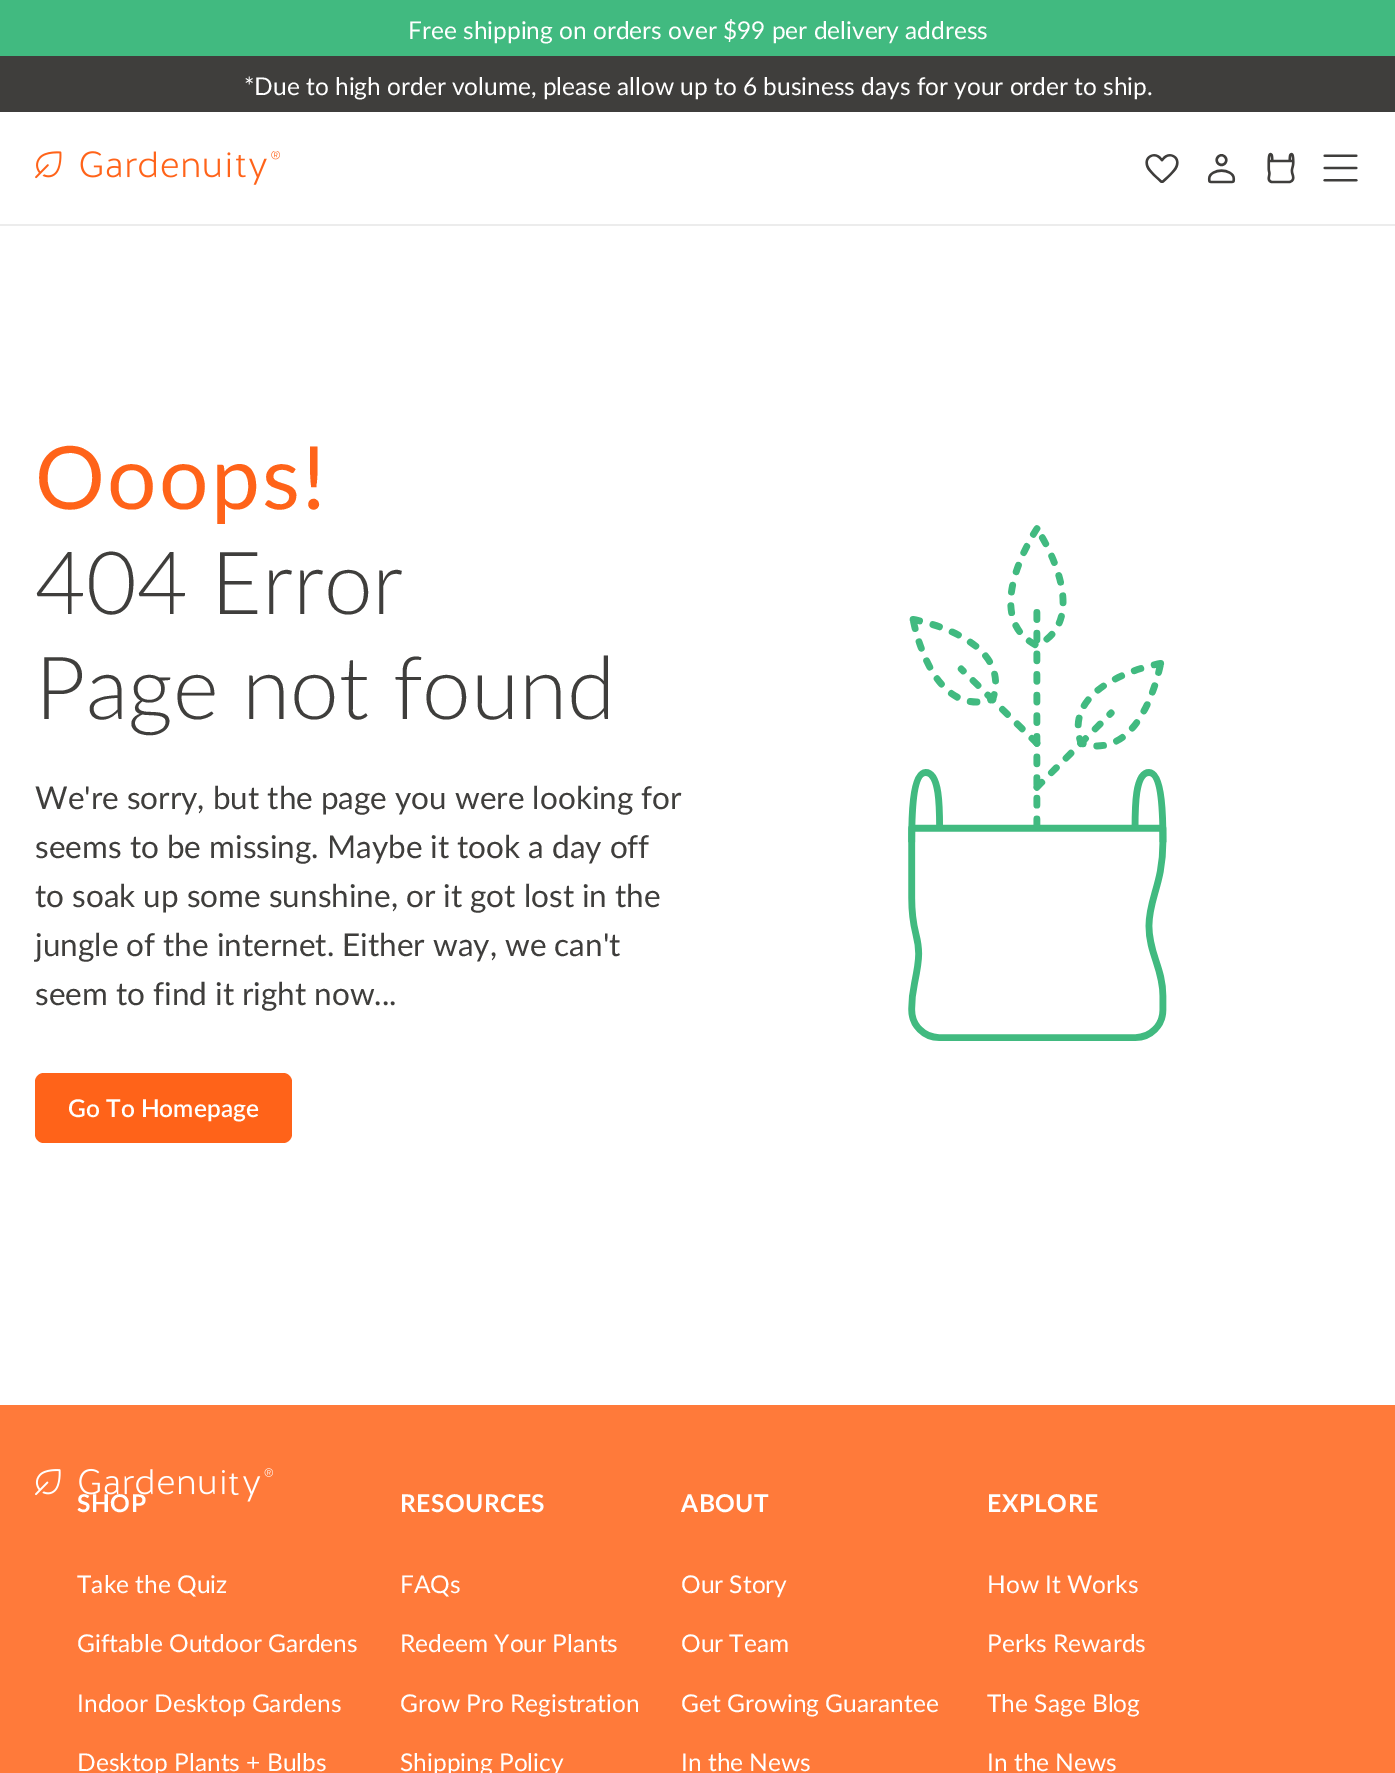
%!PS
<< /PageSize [1395 1773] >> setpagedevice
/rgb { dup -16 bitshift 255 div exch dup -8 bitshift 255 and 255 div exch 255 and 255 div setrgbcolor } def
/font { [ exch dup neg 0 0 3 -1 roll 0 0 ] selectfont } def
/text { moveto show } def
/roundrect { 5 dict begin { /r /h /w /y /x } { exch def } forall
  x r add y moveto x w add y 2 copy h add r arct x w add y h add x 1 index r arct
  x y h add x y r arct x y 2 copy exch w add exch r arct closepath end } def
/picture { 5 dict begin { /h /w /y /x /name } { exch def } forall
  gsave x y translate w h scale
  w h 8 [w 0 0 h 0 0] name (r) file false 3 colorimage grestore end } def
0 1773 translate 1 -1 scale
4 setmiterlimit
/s1 { /Lato-Regular 24.5 font 16#FFFFFF rgb } def
/s2 { /Lato-Light 87.5 font 16#3F3E3C rgb } def
/s3 { /Lato-Regular 31.5 font 16#3F3E3C rgb } def
/s4 { /Lato-SemiBold 24.5 font 16#FFFFFF rgb } def
16#FFFFFF rgb
0 0 1395 1773 rectfill
16#41BA80 rgb
0 0 1395 56 rectfill
s1
(Free shipping on orders over $99 per delivery address) 408 39 text
16#3F3E3C rgb
0 56 1395 56 rectfill
s1
(*Due to high order volume, please allow up to 6 business days for your order to ship.) 244 95 text
16#ECECEC rgb
0 224 1395 2 rectfill
(pic1.raw) 35 151 245 34 picture
(pic2.raw) 1145 154 34 29 picture
(pic3.raw) 1207 154 29 30 picture
(pic4.raw) 1267 152 28 32 picture
(pic5.raw) 1323 154 35 28 picture
/Lato-Regular 87.5 font
16#FF6319 rgb
35 509 moveto 2.25 0 (Ooops!) ashow
s2
(404 Error) 35 614 text
(Page not found) 35 719 text
s3
(We're sorry, but the page you were looking for) 35 809 text
(seems to be missing. Maybe it took a day off) 35 858 text
(to soak up some sunshine, or it got lost in the) 35 907 text
(jungle of the internet. Either way, we can't) 35 956 text
(seem to find it right now...) 35 1005 text
16#FF6319 rgb
35 1073 257 70 9 roundrect fill
s4
(Go To Homepage) 68 1117 text
(pic6.raw) 908 525 259 516 picture
16#FF7A3A rgb
0 1405 1395 368 rectfill
(pic7.raw) 35 1468 238 34 picture
/Lato-Bold 24.5 font
16#FFFFFF rgb
77 1512 moveto 0.5 0 (SHOP) ashow
s1
(Take the Quiz) 77 1593 text
(Giftable Outdoor Gardens) 77 1652 text
(Indoor Desktop Gardens) 77 1712 text
(Desktop Plants + Bulbs) 77 1771 text
/Lato-Bold 24.5 font
400 1512 moveto 0.5 0 (RESOURCES) ashow
s1
(FAQs) 400 1593 text
(Redeem Your Plants) 400 1652 text
(Grow Pro Registration) 400 1712 text
(Shipping Policy) 400 1771 text
/Lato-Bold 24.5 font
681 1512 moveto 0.5 0 (ABOUT) ashow
s1
(Our Story) 681 1593 text
(Our Team) 681 1652 text
(Get Growing Guarantee) 681 1712 text
(In the News) 681 1771 text
/Lato-Bold 24.5 font
987 1512 moveto 0.5 0 (EXPLORE) ashow
s1
(How It Works) 987 1593 text
(Perks Rewards) 987 1652 text
(The Sage Blog) 987 1712 text
(In the News) 987 1771 text
showpage
